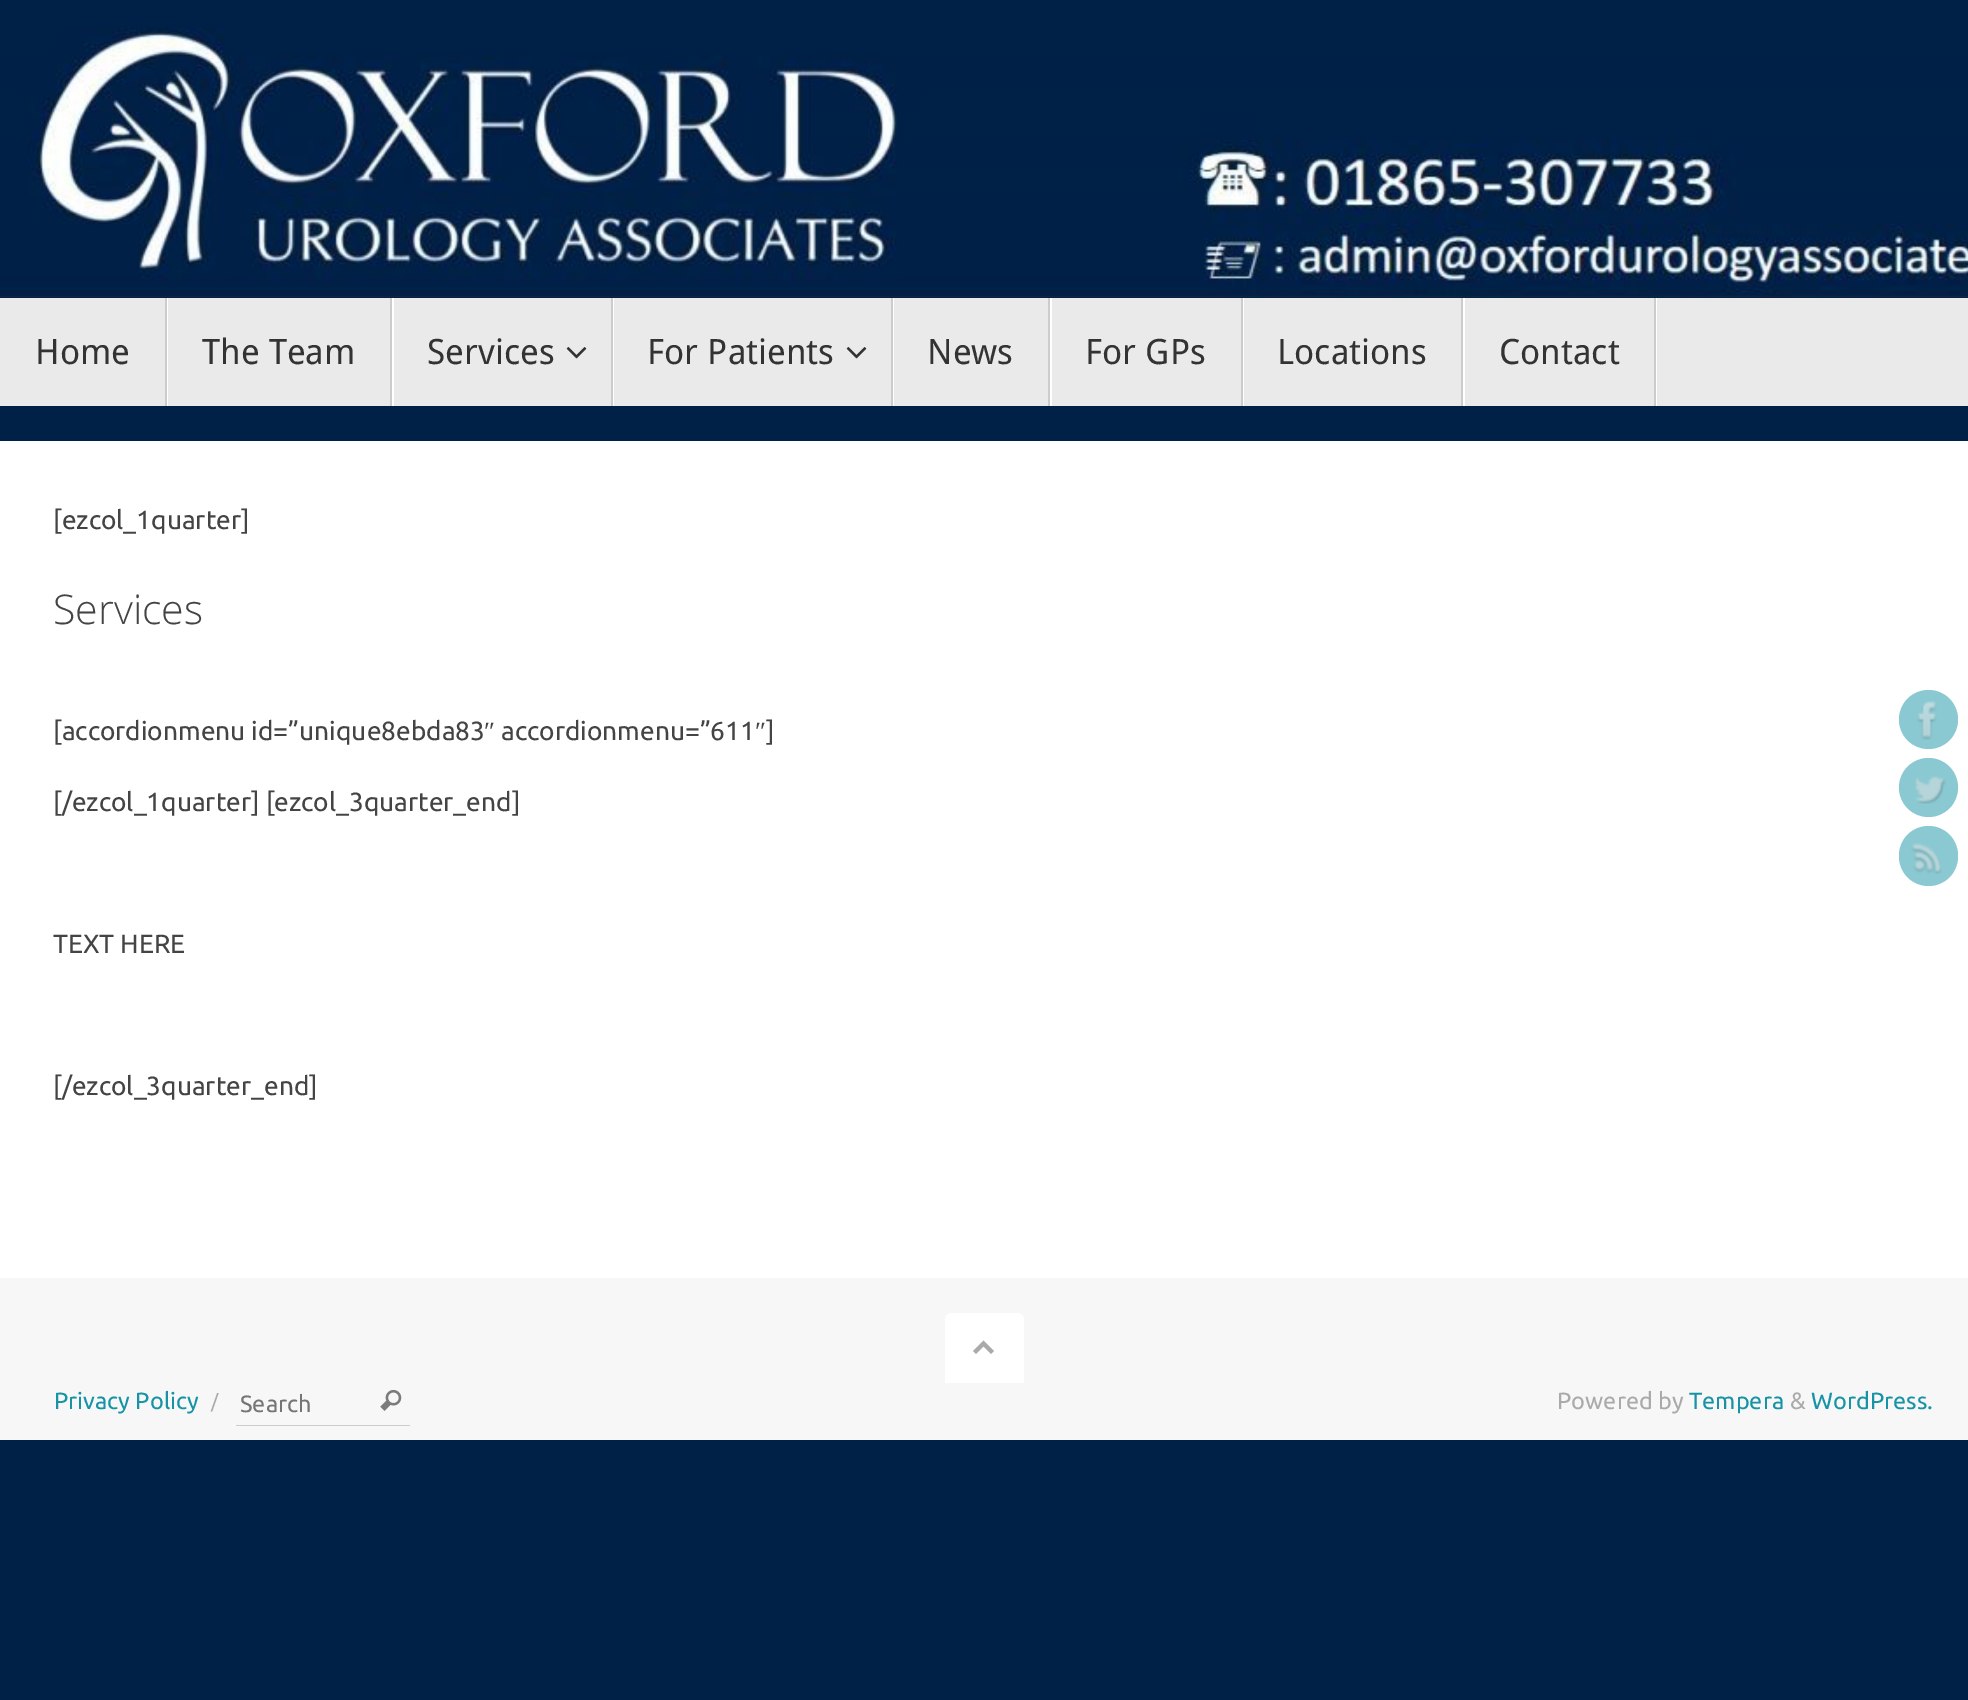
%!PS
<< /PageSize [1968 1700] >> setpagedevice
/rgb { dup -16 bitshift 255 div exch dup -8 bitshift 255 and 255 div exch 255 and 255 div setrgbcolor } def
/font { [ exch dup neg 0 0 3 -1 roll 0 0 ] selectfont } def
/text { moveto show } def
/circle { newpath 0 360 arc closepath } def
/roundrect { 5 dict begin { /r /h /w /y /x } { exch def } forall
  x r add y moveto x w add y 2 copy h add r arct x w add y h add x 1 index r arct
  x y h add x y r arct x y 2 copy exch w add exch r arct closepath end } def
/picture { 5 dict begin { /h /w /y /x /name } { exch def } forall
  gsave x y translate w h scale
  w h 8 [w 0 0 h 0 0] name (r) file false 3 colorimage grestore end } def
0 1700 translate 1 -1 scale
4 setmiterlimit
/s1 { /DroidSans-Regular 35 font 16#333333 rgb } def
/s2 { /Ubuntu-Regular 26.25 font 16#444444 rgb } def
/s3 { /OpenSans-Light 41 font 16#444444 rgb } def
/s4 { /LiberationSerif-Regular 26.25 font 16#444444 rgb } def
/s5 { /Ubuntu-Regular 23.5 font 16#1693A5 rgb } def
/s6 { /Ubuntu-Regular 19 font 16#AAAAAA rgb } def
/s7 { /Ubuntu-Regular 23.5 font 16#757575 rgb } def
/s8 { /Ubuntu-Regular 23.5 font 16#AAAAAA rgb } def
16#002147 rgb
0 0 1968 1700 rectfill
(pic1.raw) 0 28 1968 270 picture
16#EAEAEA rgb
0 298 1968 108 rectfill
16#FFFFFF rgb
167 298 1 108 rectfill
16#CCCCCC rgb
165 298 2 108 rectfill
s1
(Home) 35 364 text
16#FFFFFF rgb
392 298 2 108 rectfill
16#CCCCCC rgb
390 298 2 108 rectfill
s1
(The Team) 202 364 text
16#FFFFFF rgb
613 298 1 108 rectfill
16#CCCCCC rgb
611 298 2 108 rectfill
s1
(Services) 427 364 text
(pic2.raw) 566 347 21 12 picture
16#FFFFFF rgb
893 298 1 108 rectfill
16#CCCCCC rgb
891 298 2 108 rectfill
s1
(For Patients) 647 364 text
(pic2.raw) 846 347 21 12 picture
16#FFFFFF rgb
1050 298 2 108 rectfill
16#CCCCCC rgb
1048 298 2 108 rectfill
s1
(News) 927 364 text
16#FFFFFF rgb
1243 298 1 108 rectfill
16#CCCCCC rgb
1241 298 2 108 rectfill
s1
(For GPs) 1085 364 text
16#FFFFFF rgb
1463 298 2 108 rectfill
16#CCCCCC rgb
1461 298 2 108 rectfill
s1
(Locations) 1277 364 text
16#FFFFFF rgb
1656 298 1 108 rectfill
16#CCCCCC rgb
1654 298 2 108 rectfill
s1
(Contact) 1499 364 text
16#FFFFFF rgb
0 441 1968 837 rectfill
s2
([ezcol_1quarter]) 53 529 text
s3
(Services) 53 624 text
s2
([accordionmenu id=”unique8ebda83) 53 740 text
s4
(″) 484 740 text
s2
(accordionmenu=”611) 501 740 text
s4
(″) 755 740 text
s2
(]) 766 740 text
([/ezcol_1quarter] [ezcol_3quarter_end]) 53 811 text
(TEXT HERE) 53 953 text
([/ezcol_3quarter_end]) 53 1095 text
16#F7F7F7 rgb
0 1278 1968 162 rectfill
16#FFFFFF rgb
952 1313 moveto 1017 1313 lineto 1021 1313 1024 1316 1024 1320 curveto 1024 1383 lineto 945 1383 lineto 945 1320 lineto 945 1316 948 1313 952 1313 curveto closepath fill
16#AAAAAA rgb
973 1351 moveto 983.5 1340.5 lineto 994 1351 lineto 991 1354 lineto 983.5 1346.5 lineto 976 1354 lineto closepath fill
s5
(Privacy Policy) 54 1409 text
s6
(/) 211 1408 text
16#CCCCCC rgb
236 1425 174 1 rectfill
s7
(Search) 240 1412 text
(pic3.raw) 380 1389 22 22 picture
s8
(Powered by) 1557 1409 text
s5
(Tempera) 1689 1409 text
s8
(&) 1790 1409 text
s5
(WordPress.) 1811 1409 text
16#8BC9D2 rgb
1928.5 719.5 29.5 circle fill
(pic4.raw) 1917 701 20 39 picture
1928.5 787.5 29.5 circle fill
(pic5.raw) 1915 776 31 28 picture
1899 826 59 60 29.5 roundrect fill
(pic6.raw) 1911 843 31 31 picture
showpage
